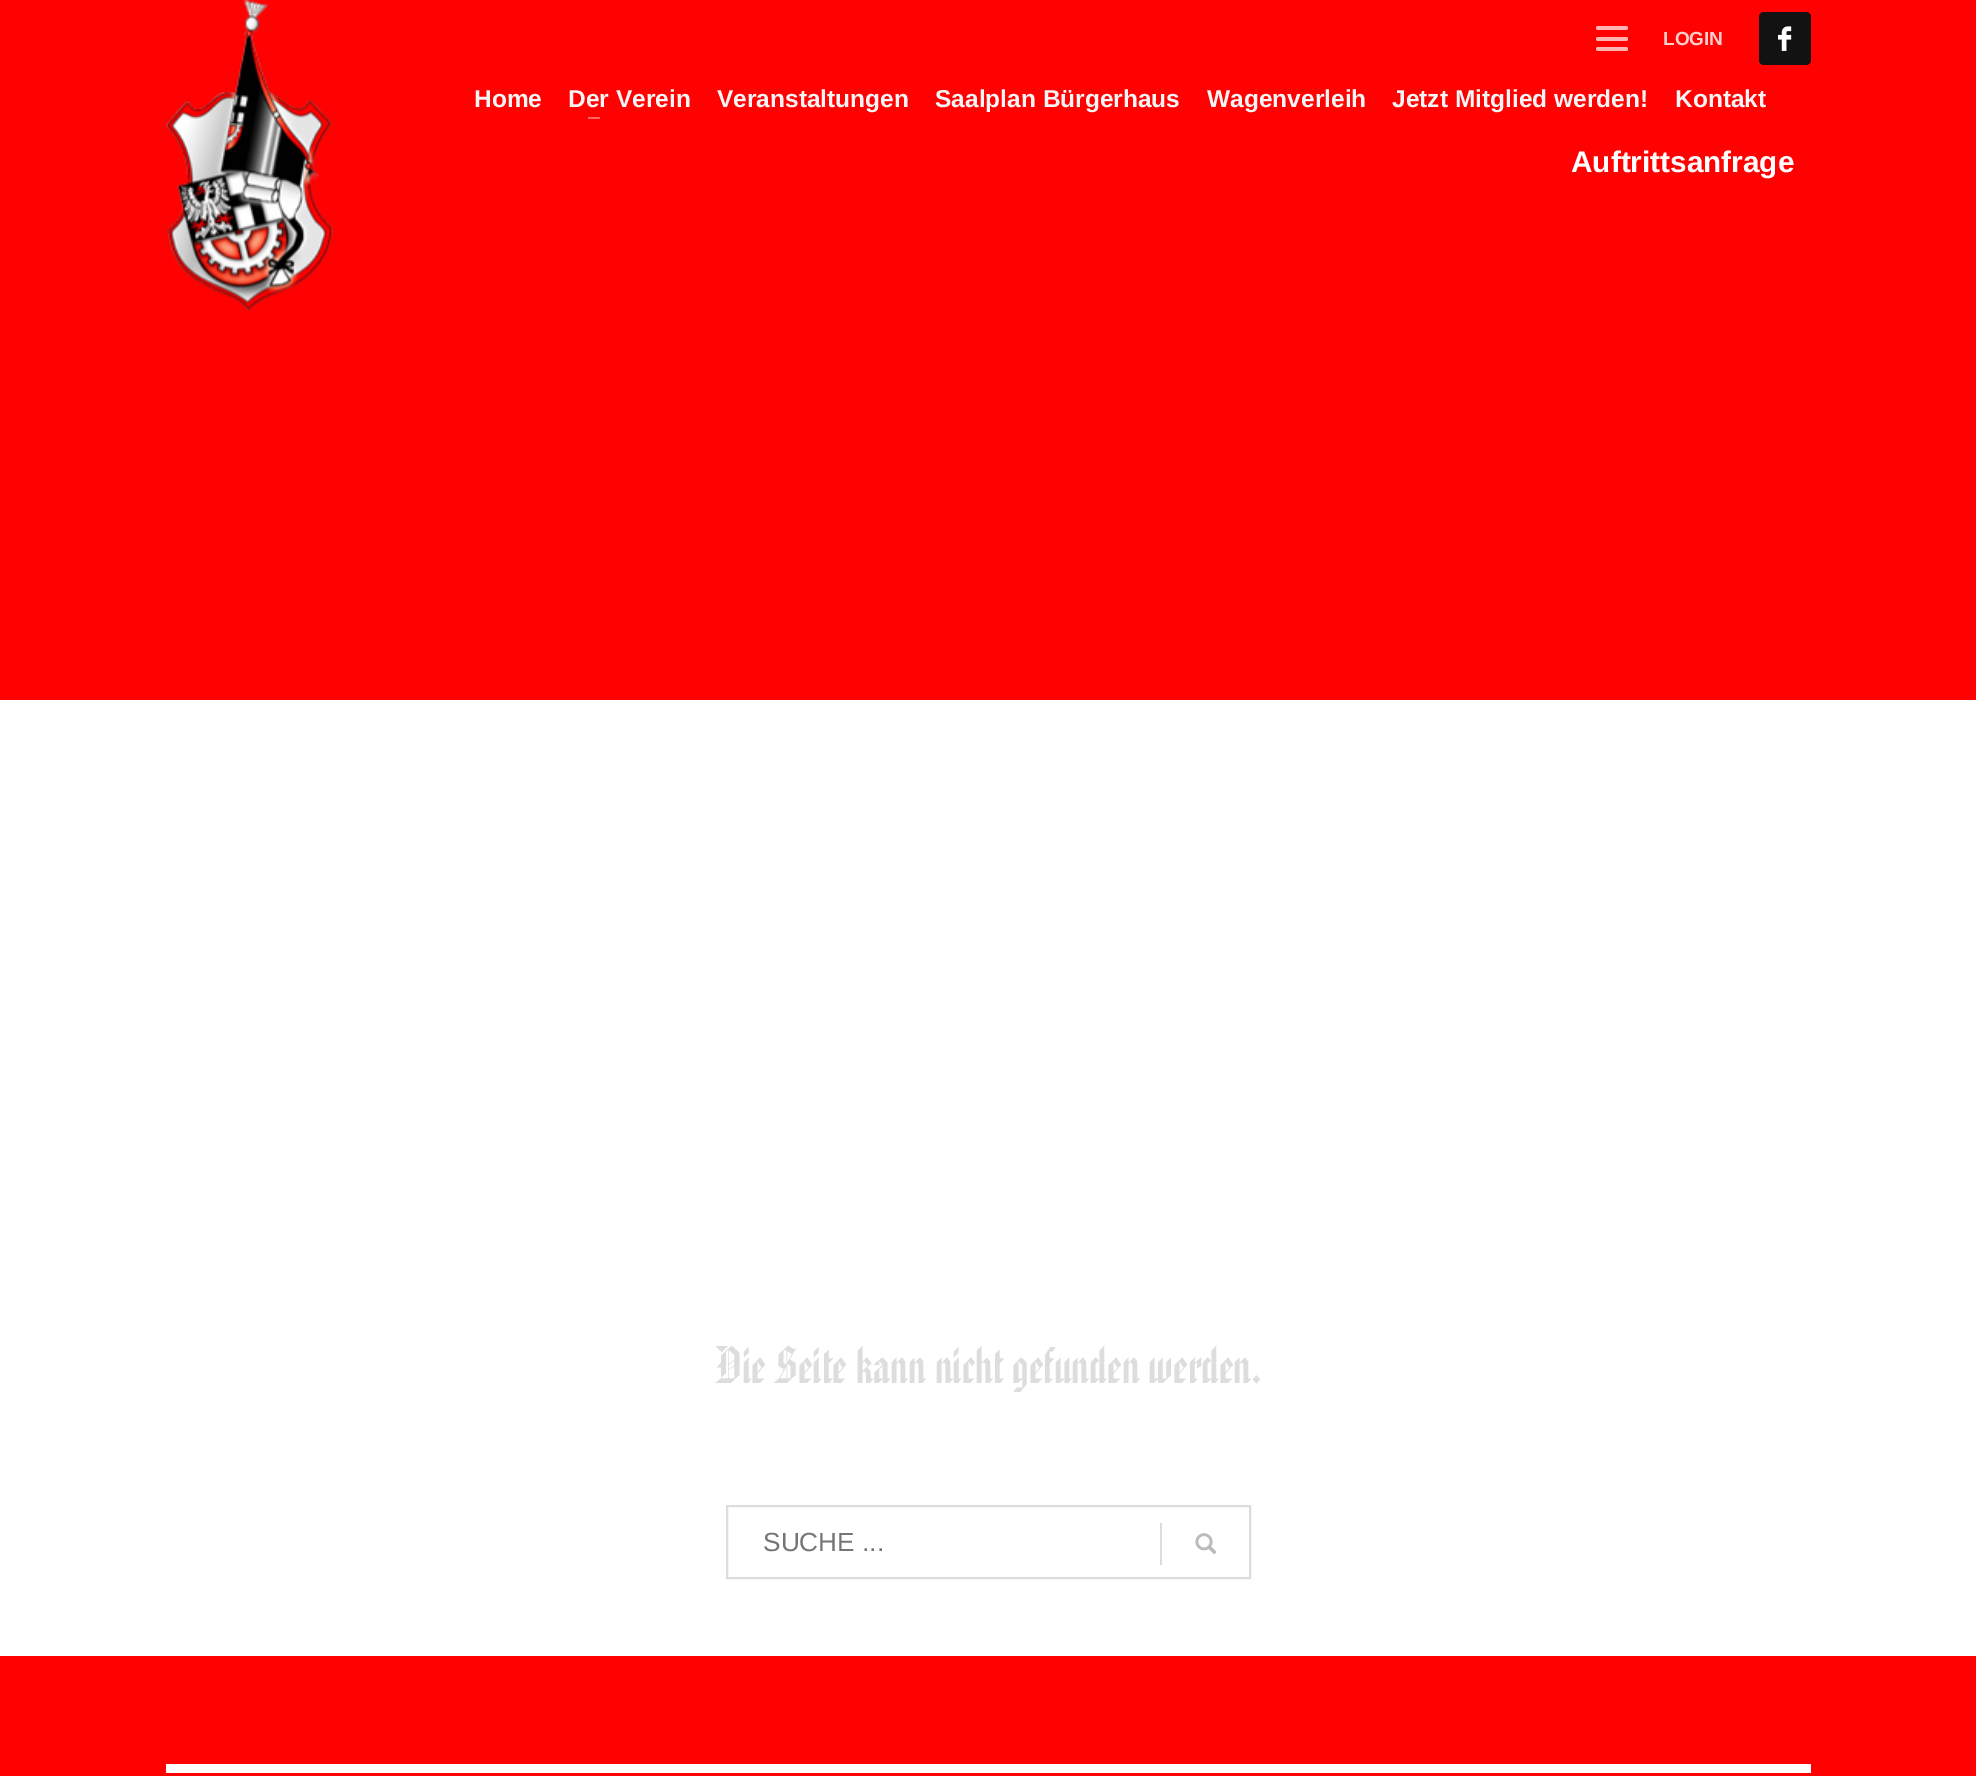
%!PS
<< /PageSize [1976 1776] >> setpagedevice
/rgb { dup -16 bitshift 255 div exch dup -8 bitshift 255 and 255 div exch 255 and 255 div setrgbcolor } def
/font { [ exch dup neg 0 0 3 -1 roll 0 0 ] selectfont } def
/text { moveto show } def
/roundrect { 5 dict begin { /r /h /w /y /x } { exch def } forall
  x r add y moveto x w add y 2 copy h add r arct x w add y h add x 1 index r arct
  x y h add x y r arct x y 2 copy exch w add exch r arct closepath end } def
/picture { 5 dict begin { /h /w /y /x /name } { exch def } forall
  gsave x y translate w h scale
  w h 8 [w 0 0 h 0 0] name (r) file false 3 colorimage grestore end } def
0 1776 translate 1 -1 scale
4 setmiterlimit
/s1 { /LiberationSans-Bold 19 font 16#FFCCCC rgb } def
/s2 { /LiberationSans-Bold 24.5 font 16#F5F5F5 rgb } def
/s3 { /LiberationSans-Bold 29.75 font 16#FFFFFF rgb } def
/s4 { /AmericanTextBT-Regular 52.5 font 16#DDDDDD rgb } def
/s5 { /LiberationSans-Regular 26.25 font 16#757575 rgb } def
16#FFFFFF rgb
0 0 1976 1776 rectfill
16#FF0101 rgb
0 0 1976 700 rectfill
(pic1.raw) 166 0 167 312 picture
16#FFB3B3 rgb
1596 47 32 4 2 roundrect fill
1596 37 32 4 2 roundrect fill
1596 26 32 4 2 roundrect fill
s1
(LOGIN) 1663 45 text
16#121212 rgb
1759 12 52 53 5 roundrect fill
(pic2.raw) 1778 26 14 25 picture
s2
(Home) 474 107 text
(Der Verein) 568 107 text
16#FF6767 rgb
588 117 12 2 rectfill
s2
(Veranstaltungen) 717 107 text
(Saalplan Bürgerhaus) 935 107 text
(Wagenverleih) 1207 107 text
(Jetzt Mitglied werden!) 1392 107 text
(Kontakt) 1675 107 text
s3
(Auftrittsanfrage) 1571 172 text
s4
(Die Seite kann nicht gefunden werden.) 716 1383 text
2 setlinewidth
727 1506 523 72 rectstroke
s5
(SUCHE ...) 763 1551 text
16#DDDDDD rgb
1160 1523 2 42 rectfill
(pic3.raw) 1195 1533 22 21 picture
16#FF0101 rgb
0 1656 1976 120 rectfill
16#FFFFFF rgb
166 1764 1645 9 rectfill
showpage
